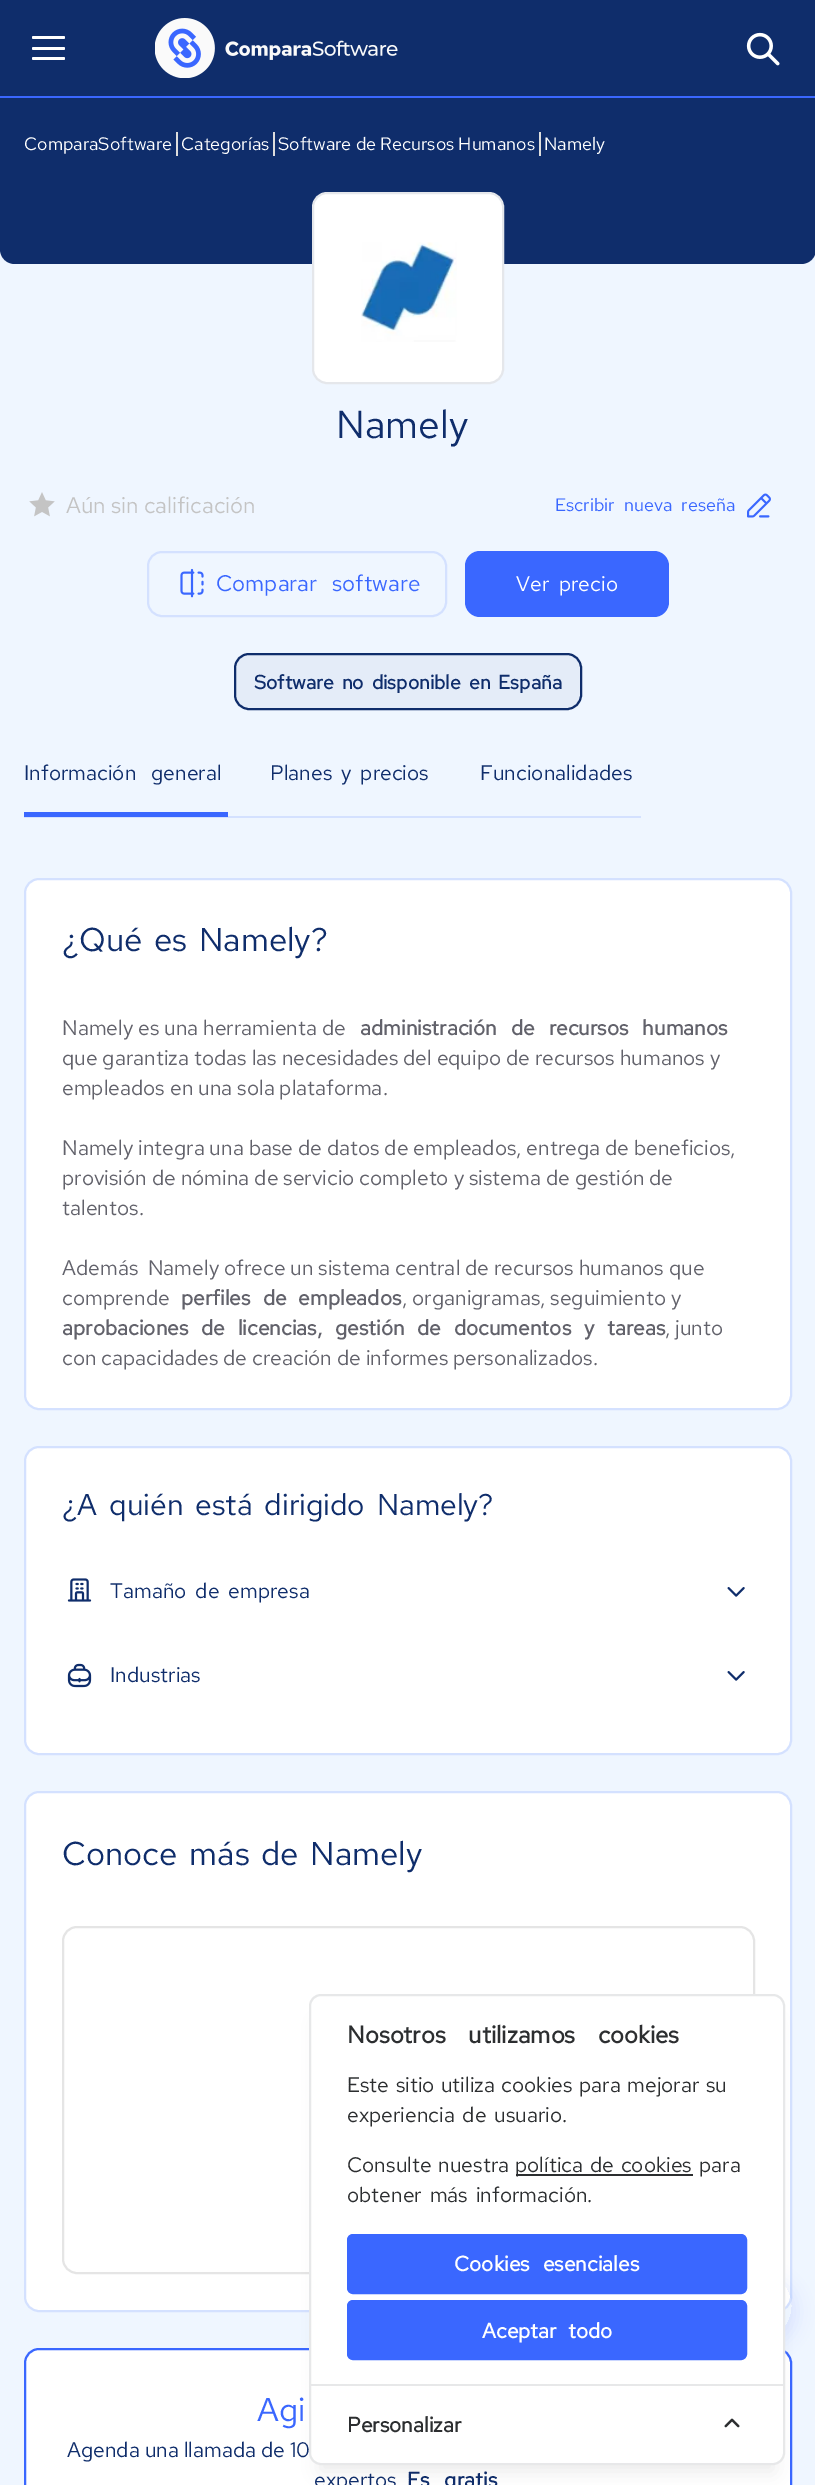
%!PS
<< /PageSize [815 2485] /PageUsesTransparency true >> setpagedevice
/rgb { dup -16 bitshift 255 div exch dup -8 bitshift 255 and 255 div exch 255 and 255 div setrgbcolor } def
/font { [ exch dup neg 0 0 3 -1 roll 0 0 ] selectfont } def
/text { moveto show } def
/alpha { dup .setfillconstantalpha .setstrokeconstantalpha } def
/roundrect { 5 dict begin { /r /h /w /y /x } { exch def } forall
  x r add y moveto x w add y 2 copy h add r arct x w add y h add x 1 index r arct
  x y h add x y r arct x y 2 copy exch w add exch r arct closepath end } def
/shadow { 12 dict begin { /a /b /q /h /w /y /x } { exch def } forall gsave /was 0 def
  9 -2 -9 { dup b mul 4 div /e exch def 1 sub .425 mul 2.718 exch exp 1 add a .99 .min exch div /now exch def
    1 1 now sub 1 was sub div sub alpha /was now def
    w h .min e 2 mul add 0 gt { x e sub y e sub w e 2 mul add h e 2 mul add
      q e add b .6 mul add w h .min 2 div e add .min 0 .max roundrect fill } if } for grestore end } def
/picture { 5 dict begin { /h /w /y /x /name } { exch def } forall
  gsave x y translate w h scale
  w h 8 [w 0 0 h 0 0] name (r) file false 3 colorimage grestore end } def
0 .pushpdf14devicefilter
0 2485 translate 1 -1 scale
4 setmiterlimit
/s1 { /RedHatText-Regular 18 font 16#FFFFFF rgb } def
/s2 { /RedHatText-Regular 39 font 16#0F2D6B rgb } def
/s3 { /RedHatText-Regular 22.5 font 16#C4C4C4 rgb } def
/s4 { /RedHatText-Regular 21 font 16#0F2D6B rgb } def
/s5 { /RedHatText-Regular 21 font 16#62626B rgb } def
/s6 { /RedHatText-Regular 21 font 16#2C2E30 rgb } def
/s7 { /RedHatText-Bold 21 font 16#2C2E30 rgb } def
16#EFF6FF rgb
0 0 815 2485 rectfill
16#0F2D6B rgb
0 0 moveto 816 0 lineto 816 249 lineto 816 257.5 809.5 264 801 264 curveto 15 264 lineto 6.5 264 0 257.5 0 249 curveto closepath fill
16#3A67FF rgb
0 96 815 2 rectfill
16#FFFFFF rgb
32 47 33 3 1.5 roundrect fill
32 36 33 3 1.5 roundrect fill
32 57 33 3 1.5 roundrect fill
(pic1.raw) 155 18 243 60 picture
(pic2.raw) 746 32 34 34 picture
s1
(ComparaSoftware) 24 150 text
16#DDDDDD rgb
176 132 2 24 rectfill
s1
(Categorías) 181 150 text
16#DDDDDD rgb
273 132 2 24 rectfill
s1
(Software de Recursos Humanos) 278 150 text
16#DDDDDD rgb
539 132 2 24 rectfill
s1
(Namely) 544 150 text
313 193 190 190 14 roundrect gsave fill grestore
16#E5E7EB rgb
2 setlinewidth
stroke
(pic3.raw) 361 242 96 100 picture
s2
(Namely) 336 438 text
(pic4.raw) 29 492 26 25 picture
s3
(Aún sin calificación) 66 513 text
/RedHatText-Regular 18 font
16#3A67FF rgb
555 511 moveto 5 0 32 (Escribir nueva reseña) widthshow
(pic5.raw) 747 493 24 25 picture
16#D4E1FF rgb
148 552 298 64 14 roundrect stroke
(pic6.raw) 180 568 24 30 picture
/RedHatText-Regular 22.5 font
16#3A67FF rgb
216 591 moveto 10 0 32 (Comparar software) widthshow
465 551 204 66 15 roundrect fill
/RedHatText-Regular 21 font
16#FFFFFF rgb
516 591 moveto 5 0 32 (Ver precio) widthshow
16#E4ECF8 rgb
235 654 346 55 14 roundrect gsave fill grestore
16#0F2D6B rgb
stroke
/RedHatText-Bold 19.5 font
254 689 moveto 3.5 0 32 (Software no disponible en España) widthshow
16#D4E1FF rgb
24 816 617 2 rectfill
16#3A67FF rgb
24 812 204 5 rectfill
/RedHatText-Regular 21 font
16#0F2D6B rgb
24 780 moveto 10 0 32 (Información general) widthshow
270 780 moveto 4 0 32 (Planes y precios) widthshow
(Funcionalidades) 480 780 text
16#FFFFFF rgb
25 879 766 530 14 roundrect gsave fill grestore
16#D4E1FF rgb
stroke
/RedHatText-Regular 33 font
16#0F2D6B rgb
62 951 moveto 4 0 32 (¿Qué es Namely?) widthshow
s5
(Namely es una herramienta de) 62 1035 text
/RedHatText-Bold 21 font
360 1035 moveto 9 0 32 (administración de recursos humanos) widthshow
s5
(que garantiza todas las necesidades del equipo de recursos humanos y) 62 1065 text
(empleados en una sola plataforma.) 62 1095 text
(Namely integra una base de datos de empleados, entrega de beneficios,) 62 1155 text
(provisión de nómina de servicio completo y sistema de gestión de) 62 1185 text
(talentos.) 62 1215 text
(Además  Namely ofrece un sistema central de recursos humanos que) 62 1275 text
(comprende) 62 1305 text
/RedHatText-Bold 21 font
181 1305 moveto 7 0 32 (perfiles de empleados) widthshow
s5
(, organigramas, seguimiento y) 402 1305 text
/RedHatText-Bold 21 font
62 1335 moveto 7.75 0 32 (aprobaciones de licencias, gestión de documentos y tareas) widthshow
s5
(, junto) 665 1335 text
(con capacidades de creación de informes personalizados.) 62 1365 text
16#FFFFFF rgb
25 1447 766 307 14 roundrect gsave fill grestore
16#D4E1FF rgb
stroke
/RedHatText-Regular 30 font
16#0F2D6B rgb
62 1515 moveto 5 0 32 (¿A quién está dirigido Namely?) widthshow
(pic7.raw) 67 1578 25 24 picture
/RedHatText-Regular 21 font
110 1598 moveto 4 0 32 (Tamaño de empresa) widthshow
(pic8.raw) 727 1587 18 10 picture
(pic9.raw) 67 1663 25 25 picture
(Industrias) 110 1682 text
(pic8.raw) 727 1671 18 10 picture
16#FFFFFF rgb
25 1792 766 519 14 roundrect gsave fill grestore
16#D4E1FF rgb
stroke
/RedHatText-Regular 33 font
16#0F2D6B rgb
62 1865 moveto 4 0 32 (Conoce más de Namely) widthshow
16#E5E5E5 rgb
63 1927 691 346 14 roundrect stroke
16#FFFFFF rgb
25 2349 766 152 14 roundrect gsave fill grestore
16#3A67FF rgb
stroke
257 2421 moveto 8 0 32 (Agi) widthshow
s4
(Agenda una llamada de 10) 67 2457 text
(expertos) 314 2487 text
/RedHatText-Bold 21 font
407 2487 moveto 10 0 32 (Es gratis) widthshow
gsave
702 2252 moveto 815 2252 lineto 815 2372 lineto 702 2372 lineto closepath 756 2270 moveto 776 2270 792 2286 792 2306 curveto 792 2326 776 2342 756 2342 curveto 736 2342 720 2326 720 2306 curveto 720 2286 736 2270 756 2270 curveto closepath eoclip newpath
16#3A67FF rgb
726 2276 72 72 36 7.5 0.1 shadow
grestore
16#000000 rgb
321 2024 452 447 0 9 0.08 shadow
16#FFFFFF rgb
310 1995 474 469 11 roundrect gsave fill grestore
16#E7E8E9 rgb
stroke
/RedHatText-Bold 24 font
16#2C2E30 rgb
347 2043 moveto 17 0 32 (Nosotros utilizamos cookies) widthshow
/RedHatText-Regular 21 font
347 2092 moveto 1.5 0 32 (Este sitio utiliza cookies para mejorar su) widthshow
347 2122 moveto 3 0 32 (experiencia de usuario.) widthshow
347 2172 moveto 2 0 32 (Consulte nuestra) widthshow
516 2174 177 2 rectfill
515 2172 moveto 2 0 32 (política de cookies) widthshow
(para) 699 2172 text
347 2202 moveto 3 0 32 (obtener más información.) widthshow
16#3A67FF rgb
348 2235 398 58 5 roundrect gsave fill grestore
stroke
/RedHatText-Bold 21 font
16#FFFFFF rgb
454 2271 moveto 8 0 32 (Cookies esenciales) widthshow
16#3A67FF rgb
348 2301 398 58 5 roundrect gsave fill grestore
stroke
16#FFFFFF rgb
482 2338 moveto 6 0 32 (Aceptar todo) widthshow
16#E7E8E9 rgb
311 2384 472 2 rectfill
s7
(Personalizar) 347 2432 text
(pic10.raw) 724 2418 16 10 picture
.poppdf14devicefilter showpage
